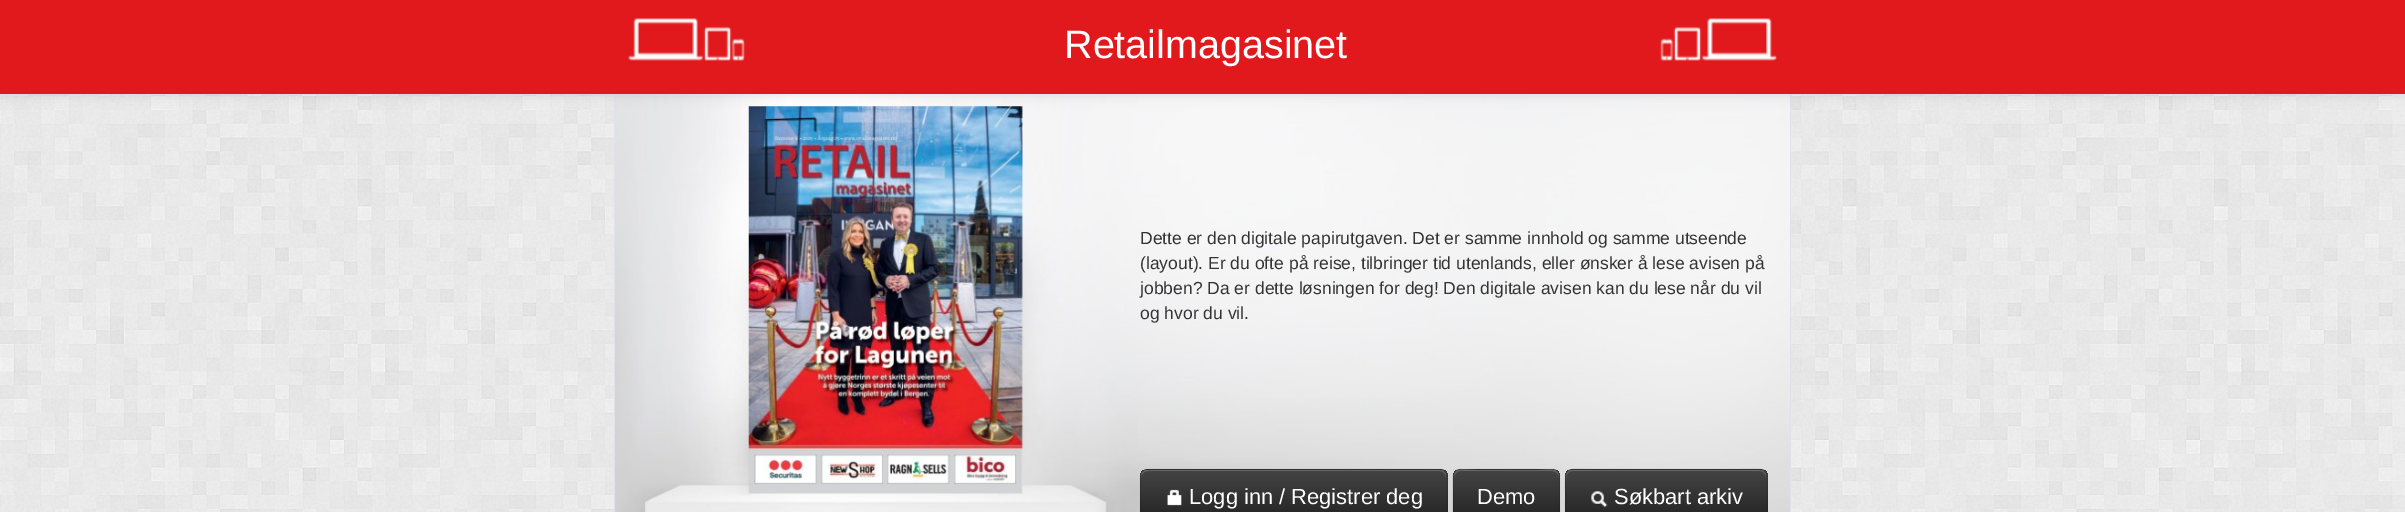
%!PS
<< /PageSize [2405 512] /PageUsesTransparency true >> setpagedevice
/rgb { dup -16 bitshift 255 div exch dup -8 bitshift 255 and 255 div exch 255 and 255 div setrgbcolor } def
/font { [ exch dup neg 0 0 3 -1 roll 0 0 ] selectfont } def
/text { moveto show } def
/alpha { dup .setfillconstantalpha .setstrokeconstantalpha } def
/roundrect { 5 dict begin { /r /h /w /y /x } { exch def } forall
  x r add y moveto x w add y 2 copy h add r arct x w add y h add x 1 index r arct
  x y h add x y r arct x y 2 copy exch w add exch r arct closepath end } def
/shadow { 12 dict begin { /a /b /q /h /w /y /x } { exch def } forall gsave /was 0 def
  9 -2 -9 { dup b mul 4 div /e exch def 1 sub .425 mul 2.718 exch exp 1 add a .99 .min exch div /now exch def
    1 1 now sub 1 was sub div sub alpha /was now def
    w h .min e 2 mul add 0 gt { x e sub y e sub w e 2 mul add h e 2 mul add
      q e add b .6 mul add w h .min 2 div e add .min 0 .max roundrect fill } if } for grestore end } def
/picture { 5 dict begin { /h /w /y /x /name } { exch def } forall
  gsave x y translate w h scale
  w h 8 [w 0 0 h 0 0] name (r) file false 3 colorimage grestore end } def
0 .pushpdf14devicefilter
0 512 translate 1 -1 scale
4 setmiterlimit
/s1 { /LiberationSans-Regular 39.5 font 16#FFFFFF rgb } def
/s2 { /LiberationSans-Regular 17.5 font 16#333333 rgb } def
/s3 { /LiberationSans-Regular 21.9 font 16#FFFFFF rgb } def
16#FFFFFF rgb
0 0 2405 512 rectfill
(pic1.raw) 0 94 2405 418 picture
16#E1E1E8 rgb
614 94 moveto 1791 94 lineto 1791 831 lineto 1791 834 1789 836 1786 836 curveto 619 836 lineto 616 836 614 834 614 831 curveto closepath 615 94 moveto 1790 94 lineto 1790 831 lineto 1790 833 1788 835 1786 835 curveto 619 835 lineto 617 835 615 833 615 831 curveto closepath eofill
(pic4.raw) 615 94 1175 418 picture
(pic5.raw) 748 106 275 388 picture
16#000000 rgb
0 1 2405 94 0 6 0.1 shadow
16#E1191C rgb
0 0 2405 94 rectfill
(pic2.raw) 628 18 117 43 picture
s1
(Retailmagasinet) 1064 58 text
(pic3.raw) 1660 18 117 43 picture
s2
(Dette er den digitale papirutgaven. Det er samme innhold og samme utseende) 1140 244 text
(\(layout\). Er du ofte på reise, tilbringer tid utenlands, eller ønsker å lese avisen på) 1140 269 text
(jobben? Da er dette løsningen for deg! Den digitale avisen kan du lese når du vil) 1140 294 text
(og hvor du vil.) 1140 319 text
16#363636 rgb
1140 469 308 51 8 roundrect fill
gsave
1140 469 308 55 8 roundrect clip newpath
gsave 1140 470 moveto 1448 470 lineto 1448 512 lineto 1140 512 lineto closepath clip newpath
<< /ShadingType 2 /ColorSpace /DeviceRGB /Coords [1294 470 1294 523] /Extend [true true] /Function << /FunctionType 2 /Domain [0 1] /C0 [0.267 0.267 0.267] /C1 [0.133 0.133 0.133] /N 1 >> >> shfill grestore
grestore
0.2 alpha
16#FFFFFF rgb
1148 471 moveto 1440 471 lineto 1443 471 1446 474 1446 478 curveto 1446 476 lineto 1446 473 1443 470 1440 470 curveto 1147 470 lineto 1144 470 1141 473 1141 476 curveto 1141 478 lineto 1141 474 1144 471 1148 471 curveto closepath fill
0.1 alpha
16#000000 rgb
1.2 setlinewidth
1142.5 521 moveto 1141.5 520 1140.5 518 1140.5 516 curveto 1140.5 476 lineto 1140.5 474.5 1141.5 472.5 1142.5 471.5 curveto 1144 470 1145.5 469.5 1147.5 469.5 curveto 1440 469.5 lineto 1442 469.5 1443.5 470 1445 471.5 curveto 1446 472.5 1447 474.5 1447 476 curveto 1447 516 lineto 1447 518 1446 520 1445 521 curveto stroke
1 alpha
(pic6.raw) 1167 489 15 17 picture
s3
(Logg inn / Registrer deg) 1189 504 text
16#363636 rgb
1453 469 107 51 8 roundrect fill
gsave
1453 469 107 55 8 roundrect clip newpath
gsave 1453 470 moveto 1560 470 lineto 1560 512 lineto 1453 512 lineto closepath clip newpath
<< /ShadingType 2 /ColorSpace /DeviceRGB /Coords [1506 470 1506 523] /Extend [true true] /Function << /FunctionType 2 /Domain [0 1] /C0 [0.267 0.267 0.267] /C1 [0.133 0.133 0.133] /N 1 >> >> shfill grestore
grestore
0.2 alpha
16#FFFFFF rgb
1460 471 moveto 1552 471 lineto 1556 471 1559 474 1559 478 curveto 1559 466 1547 470 1538 470 curveto 1476 470 lineto 1466 470 1454 466 1454 478 curveto 1454 474 1457 471 1460 471 curveto closepath fill
0.1 alpha
16#000000 rgb
1455 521 moveto 1454 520 1453 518 1453 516 curveto 1453 476 lineto 1453 474.5 1454 472.5 1455 471.5 curveto 1456.5 470 1458 469.5 1460 469.5 curveto 1552.5 469.5 lineto 1554.5 469.5 1556 470 1557.5 471.5 curveto 1558.5 472.5 1559.5 474.5 1559.5 476 curveto 1559.5 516 lineto 1559.5 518 1558.5 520 1557.5 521 curveto stroke
1 alpha
s3
(Demo) 1477 504 text
16#363636 rgb
1565 469 203 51 8 roundrect fill
gsave
1565 469 203 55 8 roundrect clip newpath
gsave 1565 470 moveto 1768 470 lineto 1768 512 lineto 1565 512 lineto closepath clip newpath
<< /ShadingType 2 /ColorSpace /DeviceRGB /Coords [1666 470 1666 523] /Extend [true true] /Function << /FunctionType 2 /Domain [0 1] /C0 [0.267 0.267 0.267] /C1 [0.133 0.133 0.133] /N 1 >> >> shfill grestore
grestore
0.2 alpha
16#FFFFFF rgb
1572 471 moveto 1760 471 lineto 1763 471 1766 474 1766 478 curveto 1766 476 lineto 1766 473 1763 470 1760 470 curveto 1572 470 lineto 1569 470 1566 473 1566 476 curveto 1566 478 lineto 1566 474 1569 471 1572 471 curveto closepath fill
0.1 alpha
16#000000 rgb
1567.5 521 moveto 1564.5 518 1565.5 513.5 1565.5 509.5 curveto 1565.5 503 lineto 1565.5 462.5 1559.5 469.5 1604 469.5 curveto 1729 469.5 lineto 1773 469.5 1767 462.5 1767 503 curveto 1767 509.5 lineto 1767 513.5 1768 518 1765 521 curveto stroke
1 alpha
(pic7.raw) 1591 491 17 17 picture
s3
(Søkbart arkiv) 1614 504 text
.poppdf14devicefilter showpage
